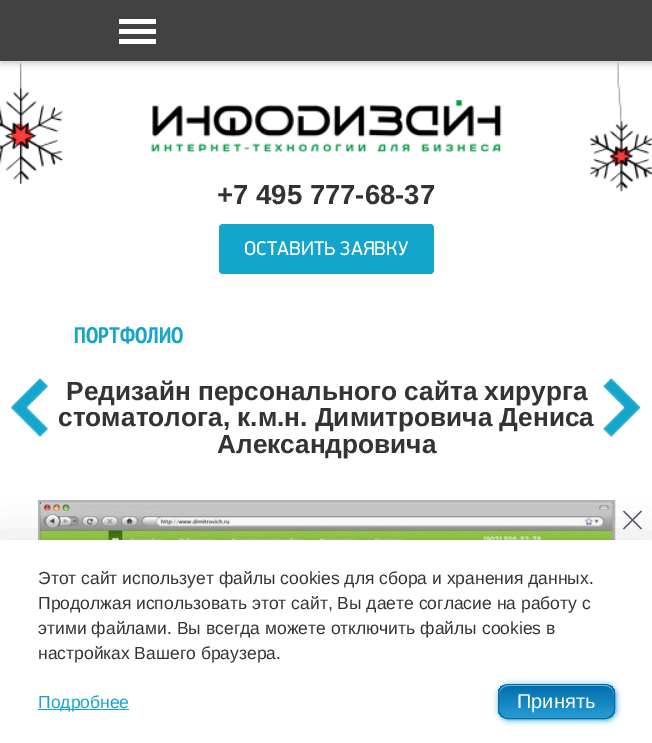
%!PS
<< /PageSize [652 743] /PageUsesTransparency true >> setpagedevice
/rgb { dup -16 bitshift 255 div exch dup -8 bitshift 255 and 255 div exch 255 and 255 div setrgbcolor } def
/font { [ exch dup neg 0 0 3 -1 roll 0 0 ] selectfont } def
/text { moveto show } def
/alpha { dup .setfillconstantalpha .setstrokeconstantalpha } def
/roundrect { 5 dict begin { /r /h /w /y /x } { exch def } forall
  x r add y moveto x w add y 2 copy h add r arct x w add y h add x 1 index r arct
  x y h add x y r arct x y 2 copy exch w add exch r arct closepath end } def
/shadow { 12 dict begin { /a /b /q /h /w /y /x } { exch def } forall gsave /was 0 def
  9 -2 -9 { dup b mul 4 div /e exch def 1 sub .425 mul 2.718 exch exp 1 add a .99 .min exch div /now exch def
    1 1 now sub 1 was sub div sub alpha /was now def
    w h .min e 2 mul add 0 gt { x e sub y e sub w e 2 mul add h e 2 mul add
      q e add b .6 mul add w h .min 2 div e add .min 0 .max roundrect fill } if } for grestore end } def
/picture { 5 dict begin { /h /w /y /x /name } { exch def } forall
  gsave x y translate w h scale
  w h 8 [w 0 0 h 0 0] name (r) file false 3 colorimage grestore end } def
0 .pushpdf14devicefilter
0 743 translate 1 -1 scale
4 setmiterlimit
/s1 { /LiberationSans-Bold 27.5 font 16#333333 rgb } def
/s2 { /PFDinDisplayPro-Regular 20 font 16#FFFFFF rgb } def
/s3 { /PTSansNarrow-Bold 22.5 font 16#14A5CC rgb } def
/s4 { /LiberationSans-Bold 26.25 font 16#333333 rgb } def
/s5 { /LiberationSans-Regular 17.5 font 16#333333 rgb } def
/s6 { /LiberationSans-Regular 17.5 font 16#14A5CC rgb } def
/s7 { /LiberationSans-Regular 20 font 16#FFFFFF rgb } def
16#FFFFFF rgb
0 0 652 743 rectfill
(pic1.raw) 0 62 63 122 picture
(pic3.raw) 590 62 62 130 picture
16#CCCCCC rgb
1 3 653 61 0 3 1 shadow
16#424242 rgb
0 0 652 61 rectfill
16#FFFFFF rgb
119 39 37 5 rectfill
119 29 37 5 rectfill
119 19 37 5 rectfill
(pic2.raw) 151 100 351 53 picture
s1
(+7 495 777-68-37) 217 204 text
16#14A5CC rgb
219 224 215 50 4 roundrect fill
s2
(ОСТАВИТЬ ЗАЯВКУ) 244 255 text
s3
(ПОРТФОЛИО) 74 343 text
(pic4.raw) 11 378 37 59 picture
s4
(Редизайн персонального сайта хирурга) 66 400 text
(стоматолога, к.м.н. Димитровича Дениса) 58 426 text
(Александровича) 217 453 text
(pic5.raw) 603 378 38 59 picture
16#B5B5B5 rgb
3 setlinewidth
39.5 501.5 574 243 rectstroke
(pic6.raw) 40 502 573 38 picture
16#000000 rgb
0 545 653 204 0 22.5 0.15 shadow
16#FFFFFF rgb
0 540 652 203 rectfill
16#5B5B64 rgb
624 510.5 moveto 642 528.5 lineto 641 529.5 lineto 623 511.5 lineto closepath fill
623 528.5 moveto 641 510.5 lineto 642 511.5 lineto 624 529.5 lineto closepath fill
s5
(Этот сайт использует файлы cookies для сбора и хранения данных.) 38 584 text
(Продолжая использовать этот сайт, Вы даете согласие на работу с) 38 609 text
(этими файлами. Вы всегда можете отключить файлы cookies в) 38 634 text
(настройках Вашего браузера.) 38 659 text
16#14A5CC rgb
38 709 91 1 rectfill
(Подробнее) 38 708 text
16#249CD2 rgb
499 685 117 35 10 3 1 shadow
gsave
498 684 117 35 10 roundrect clip newpath
gsave 498 685 moveto 615 685 lineto 615 718 lineto 498 718 lineto closepath clip newpath
<< /ShadingType 2 /ColorSpace /DeviceRGB /Coords [556 718 556 685] /Extend [true true] /Function << /FunctionType 2 /Domain [0 1] /C0 [0.153 0.616 0.827] /C1 [0.004 0.427 0.671] /N 1 >> >> shfill grestore
grestore
16#8CCEF4 rgb
508 686 moveto 605 686 lineto 610 686 614 690 614 695 curveto 614 681 598 685 589 685 curveto 524 685 lineto 515 685 499 681 499 695 curveto 499 690 503 686 508 686 curveto closepath fill
16#016DAB rgb
1 setlinewidth
498.5 684.5 116 34 9.5 roundrect stroke
s7
(Принять) 517 708 text
.poppdf14devicefilter showpage
